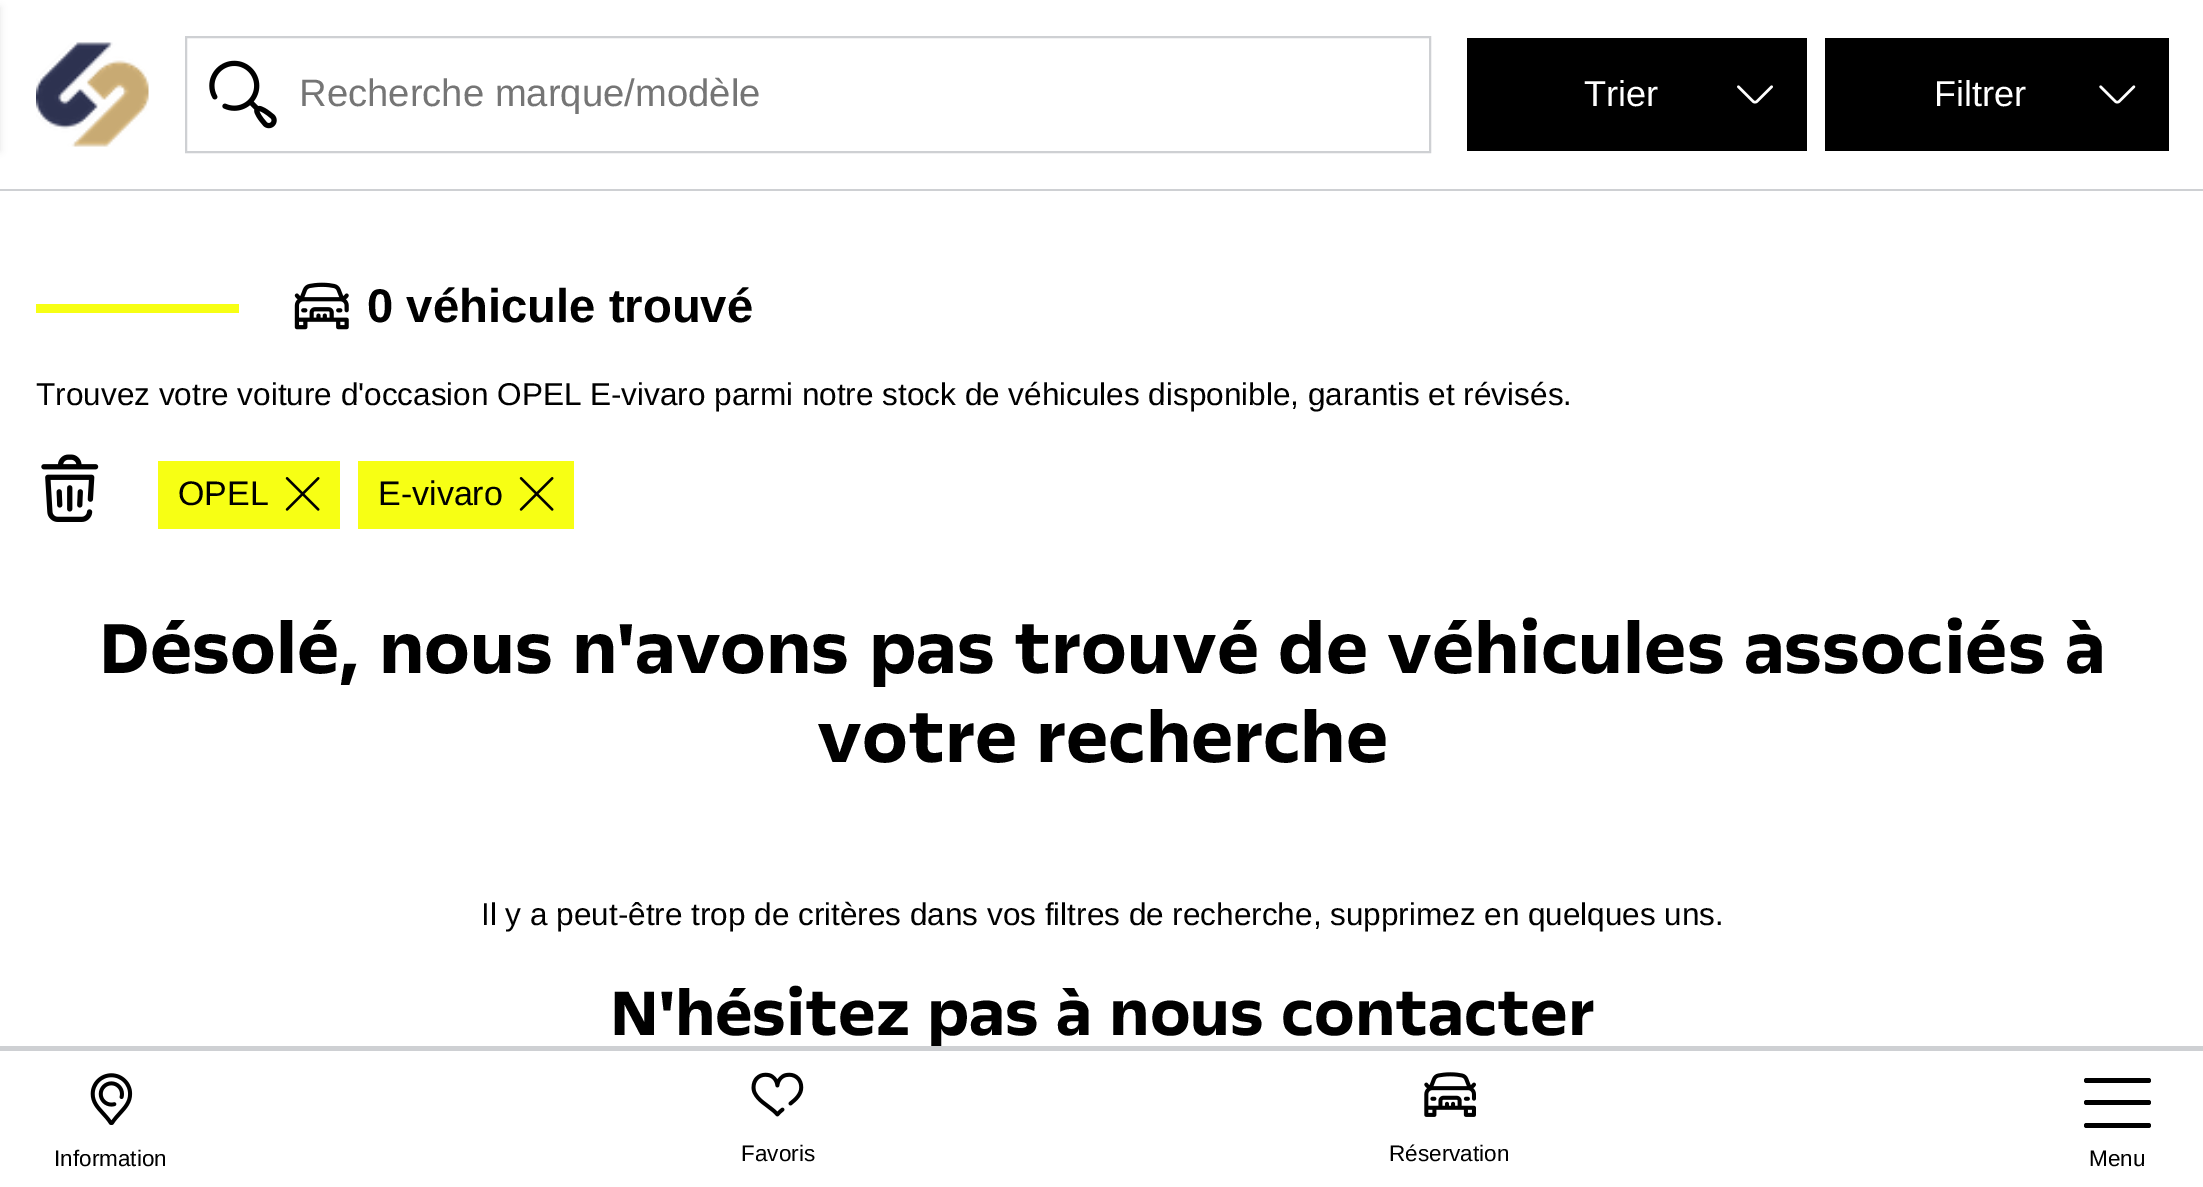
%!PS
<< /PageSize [2203 1187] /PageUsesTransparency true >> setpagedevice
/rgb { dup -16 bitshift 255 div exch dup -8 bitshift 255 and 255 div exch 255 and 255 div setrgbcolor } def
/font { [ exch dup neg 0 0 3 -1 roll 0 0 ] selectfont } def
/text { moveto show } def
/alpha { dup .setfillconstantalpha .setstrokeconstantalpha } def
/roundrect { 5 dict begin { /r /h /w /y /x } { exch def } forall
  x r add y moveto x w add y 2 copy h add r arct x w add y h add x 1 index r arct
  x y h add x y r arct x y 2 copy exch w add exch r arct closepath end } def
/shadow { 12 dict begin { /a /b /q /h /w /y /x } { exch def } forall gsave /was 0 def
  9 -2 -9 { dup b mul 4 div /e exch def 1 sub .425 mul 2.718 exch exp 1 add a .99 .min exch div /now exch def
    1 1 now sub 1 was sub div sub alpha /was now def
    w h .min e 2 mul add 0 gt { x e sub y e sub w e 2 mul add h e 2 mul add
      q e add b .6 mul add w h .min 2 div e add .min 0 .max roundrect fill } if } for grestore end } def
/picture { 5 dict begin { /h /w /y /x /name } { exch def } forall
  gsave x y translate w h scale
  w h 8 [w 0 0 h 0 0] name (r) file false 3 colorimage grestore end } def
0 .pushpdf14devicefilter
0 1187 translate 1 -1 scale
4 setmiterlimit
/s1 { /LiberationSans-Regular 38.25 font 16#757575 rgb } def
/s2 { /LiberationSans-Regular 36 font 16#FFFFFF rgb } def
/s3 { /LiberationSans-Bold 47.25 font 16#000000 rgb } def
/s4 { /LiberationSans-Regular 31.5 font 16#000000 rgb } def
/s5 { /LiberationSans-Regular 34 font 16#000000 rgb } def
/s6 { /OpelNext-Bold 81 font 16#000000 rgb } def
/s7 { /OpelNext-Bold 72 font 16#000000 rgb } def
/s8 { /LiberationSans-Regular 22.5 font 16#000000 rgb } def
16#FFFFFF rgb
0 0 2203 1187 rectfill
16#000000 rgb
-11 7 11 144 0 3.5 0.1 shadow
16#CED0D3 rgb
0 189 2203 2 rectfill
(pic1.raw) 36 42 113 105 picture
2 setlinewidth
186 37 1244 115 rectstroke
(pic2.raw) 209 60 68 69 picture
s1
(Recherche marque/modèle) 299 106 text
16#000000 rgb
1467 38 340 113 rectfill
s2
(Trier) 1584 106 text
(pic3.raw) 1737 85 36 19 picture
16#000000 rgb
1825 38 344 113 rectfill
s2
(Filtrer) 1934 106 text
(pic4.raw) 2099 85 37 19 picture
16#F7FF14 rgb
36 304 203 9 rectfill
(pic5.raw) 294 282 55 48 picture
s3
(0 véhicule trouvé) 367 322 text
s4
(Trouvez votre voiture d'occasion OPEL E-vivaro parmi notre stock de véhicules disponible, garantis et révisés.) 36 405 text
(pic6.raw) 41 454 58 68 picture
16#F7FF14 rgb
158 461 182 68 rectfill
s5
(OPEL) 178 505 text
(pic7.raw) 285 477 35 34 picture
16#F7FF14 rgb
358 461 216 68 rectfill
s5
(E-vivaro) 378 505 text
(pic7.raw) 519 477 35 34 picture
s6
(Désolé, nous n'avons pas trouvé de véhicules associés à) 99 673 text
(votre recherche) 817 762 text
s4
(Il y a peut-être trop de critères dans vos filtres de recherche, supprimez en quelques uns.) 481 925 text
s7
(N'hésitez pas à nous contacter) 610 1035 text
16#CED0D3 rgb
0 1046 2203 5 rectfill
(pic8.raw) 90 1073 43 52 picture
s8
(Information) 54 1166 text
(pic9.raw) 751 1072 53 45 picture
(Favoris) 741 1161 text
(pic10.raw) 1424 1072 52 45 picture
(Réservation) 1389 1161 text
2084 1078 67 5 2.5 roundrect fill
2084 1100 67 5 2.5 roundrect fill
2084 1123 67 5 2.5 roundrect fill
(Menu) 2089 1166 text
.poppdf14devicefilter showpage
